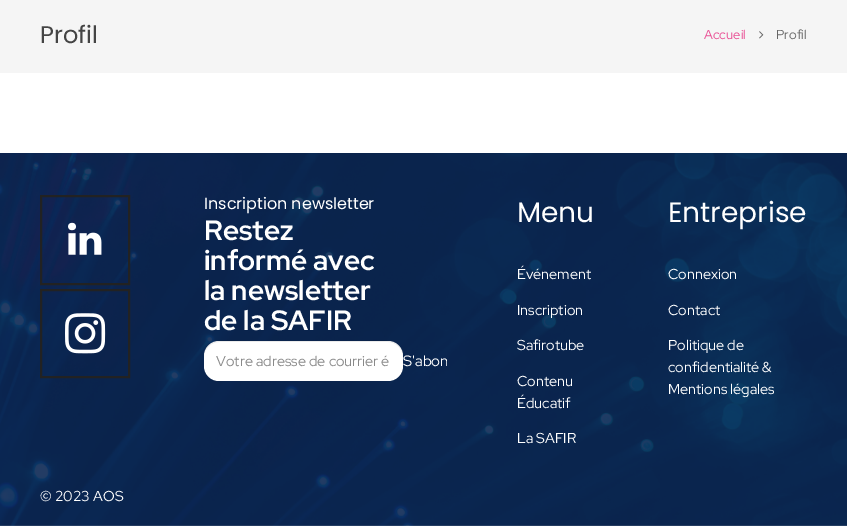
%!PS
<< /PageSize [847 526] /PageUsesTransparency true >> setpagedevice
/rgb { dup -16 bitshift 255 div exch dup -8 bitshift 255 and 255 div exch 255 and 255 div setrgbcolor } def
/font { [ exch dup neg 0 0 3 -1 roll 0 0 ] selectfont } def
/text { moveto show } def
/alpha { dup .setfillconstantalpha .setstrokeconstantalpha } def
/roundrect { 5 dict begin { /r /h /w /y /x } { exch def } forall
  x r add y moveto x w add y 2 copy h add r arct x w add y h add x 1 index r arct
  x y h add x y r arct x y 2 copy exch w add exch r arct closepath end } def
/picture { 5 dict begin { /h /w /y /x /name } { exch def } forall
  gsave x y translate w h scale
  w h 8 [w 0 0 h 0 0] name (r) file false 3 colorimage grestore end } def
0 .pushpdf14devicefilter
0 526 translate 1 -1 scale
4 setmiterlimit
/s1 { /Poppins-Regular 24 font 16#444444 rgb } def
/s2 { /RedHatDisplay-Regular 13 font 16#E95095 rgb } def
/s3 { /RedHatDisplay-Regular 13 font 16#666666 rgb } def
/s4 { /Poppins-Regular 16 font 16#FFFFFF rgb } def
/s5 { /RedHatDisplay-Bold 28 font 16#FFFFFF rgb } def
/s6 { /RedHatDisplay-Regular 14.4 font 16#898989 rgb } def
/s7 { /RedHatDisplay-Regular 15 font 16#FFFFFF rgb } def
/s8 { /Poppins-Regular 28 font 16#FFFFFF rgb } def
/s9 { /RedHatDisplay-Regular 14.4 font 16#FFFFFF rgb } def
16#FFFFFF rgb
0 0 847 526 rectfill
16#F5F5F5 rgb
0 0 847 73 rectfill
s1
(Profil) 40 43 text
s2
(Accueil) 704 39 text
(pic1.raw) 759 31 5 8 picture
s3
(Profil) 776 39 text
(pic2.raw) 0 153 847 373 picture
16#222222 rgb
2 setlinewidth
41 196 88 88 rectstroke
(pic3.raw) 68 222 34 33 picture
41 290 88 87 rectstroke
(pic4.raw) 65 313 41 41 picture
s4
(Inscription newsletter) 204 209 text
s5
(Restez) 204 240 text
(informé avec) 204 270 text
(la newsletter) 204 300 text
(de la SAFIR) 204 330 text
204 341 199 40 15 roundrect fill
0.08 alpha
16#000000 rgb
219 342 moveto 388 342 lineto 396 342 403 349 403 357 curveto 403 334 373 341 360 341 curveto 247 341 lineto 234 341 204 334 204 357 curveto 204 349 211 342 219 342 curveto closepath fill
gsave
216 351 175 19 rectclip
1 alpha
s6
(Votre adresse de courrier él) 216 366 text
grestore
gsave
403 340 44 42 rectclip
1 alpha
s7
(S'abon) 403 366 text
grestore
1 alpha
s8
(Menu) 517 222 text
s9
(Événement) 517 279 text
(Inscription) 517 315 text
(Safirotube) 517 350 text
(Contenu) 517 386 text
(Éducatif) 517 408 text
(La SAFIR) 517 443 text
s8
(Entreprise) 668 222 text
s9
(Connexion) 668 279 text
(Contact) 668 315 text
(Politique de) 668 350 text
(confidentialité &) 668 372 text
(Mentions légales) 668 394 text
(© 2023 AOS) 40 501 text
.poppdf14devicefilter showpage
